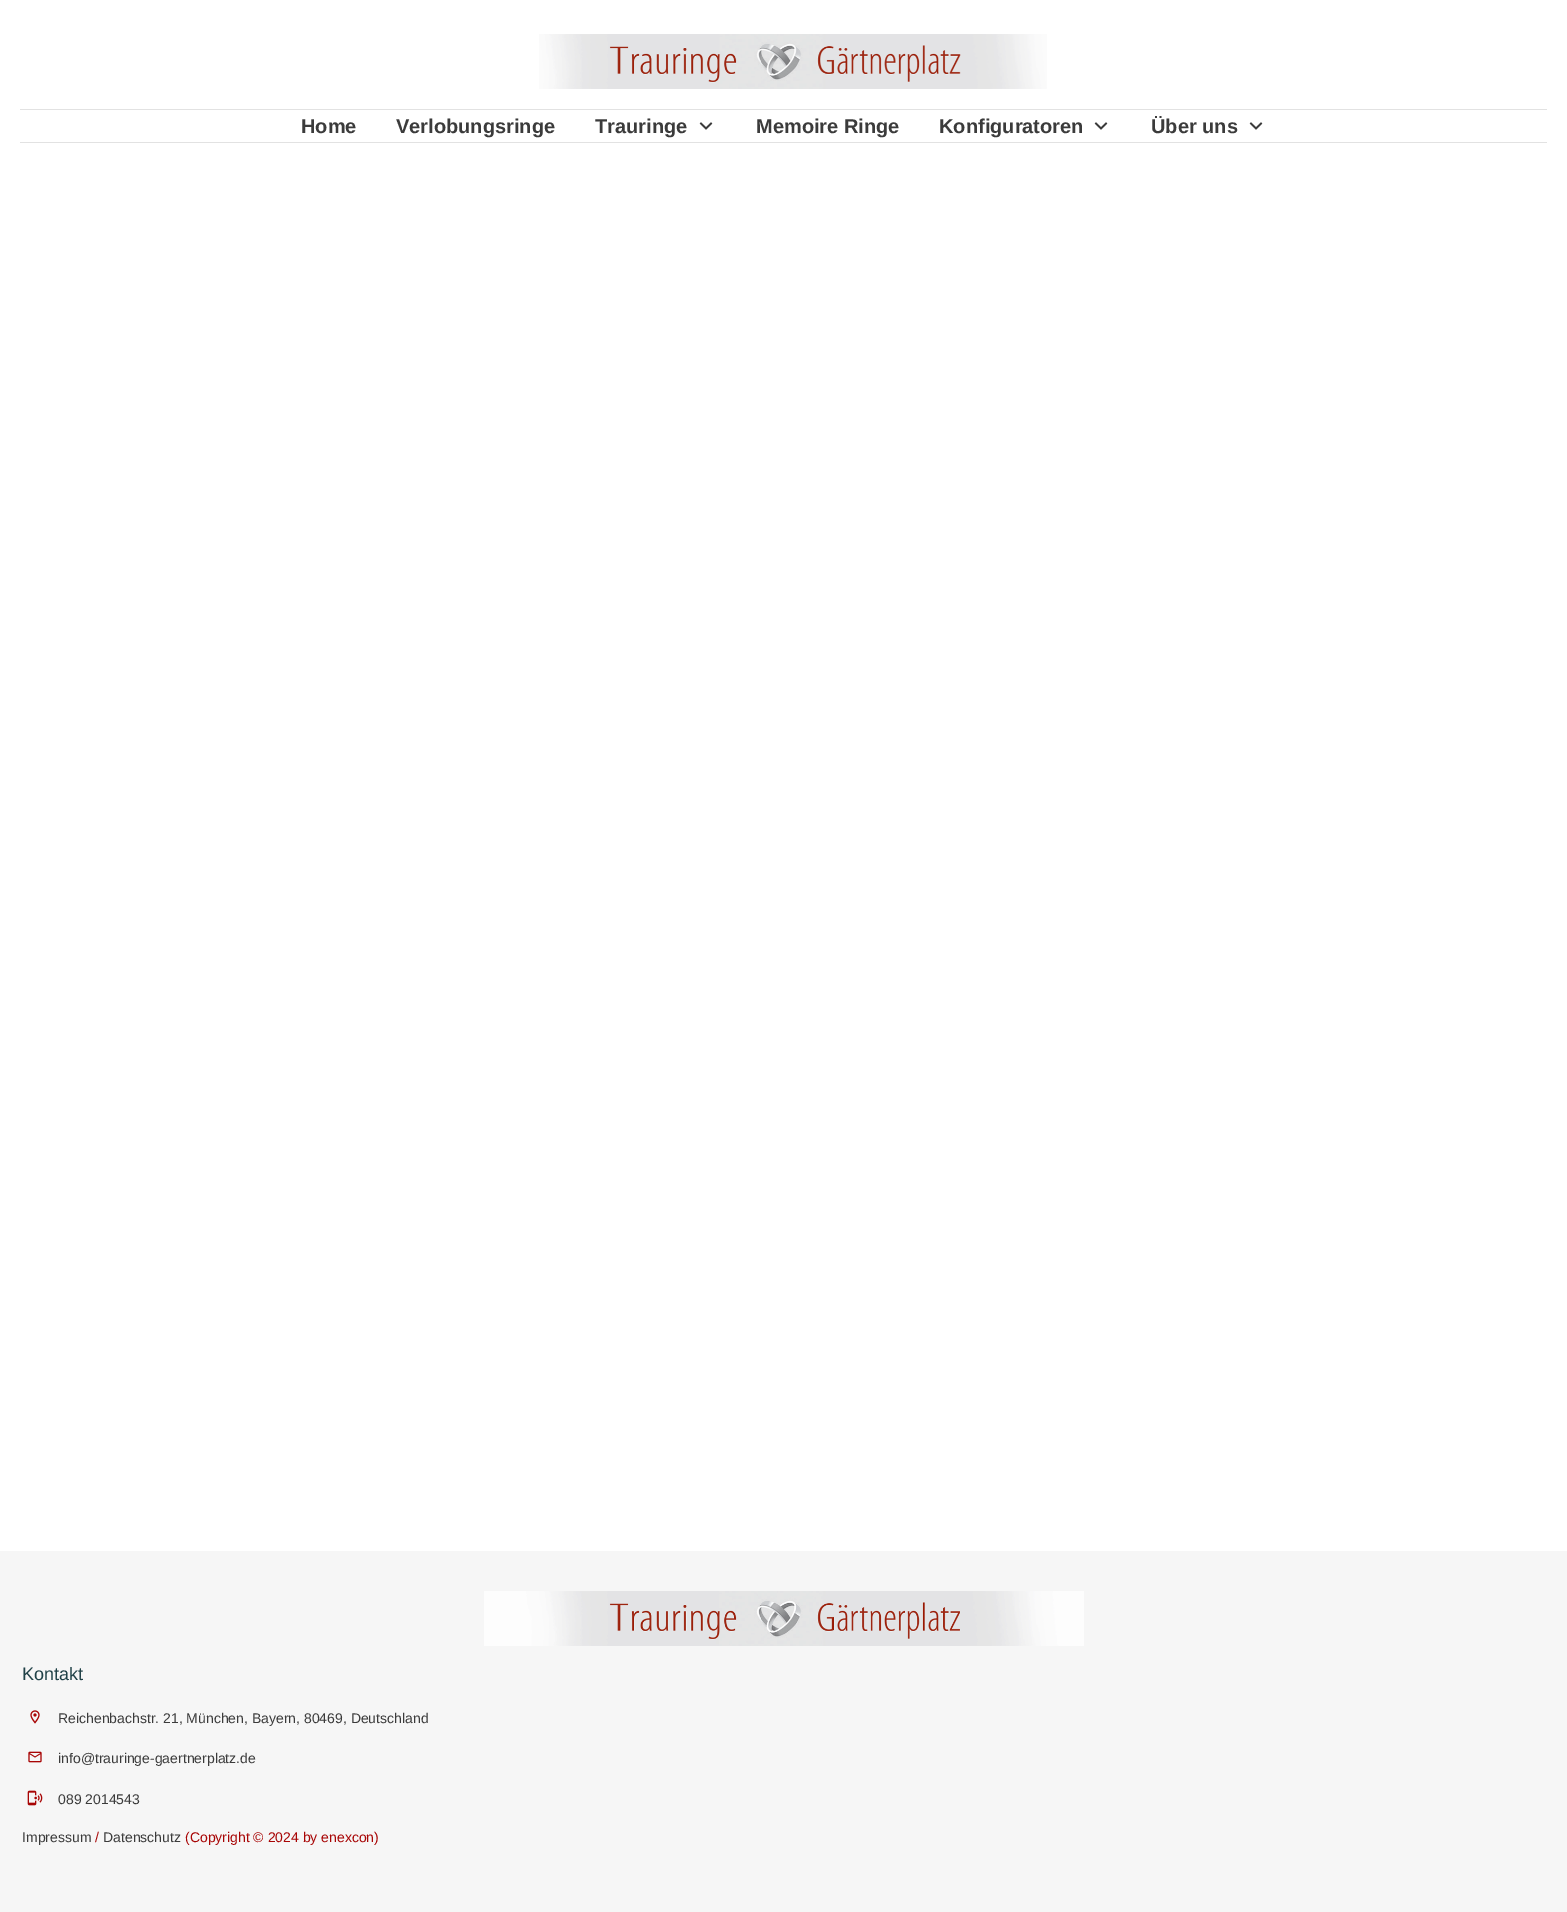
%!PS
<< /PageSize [1567 1912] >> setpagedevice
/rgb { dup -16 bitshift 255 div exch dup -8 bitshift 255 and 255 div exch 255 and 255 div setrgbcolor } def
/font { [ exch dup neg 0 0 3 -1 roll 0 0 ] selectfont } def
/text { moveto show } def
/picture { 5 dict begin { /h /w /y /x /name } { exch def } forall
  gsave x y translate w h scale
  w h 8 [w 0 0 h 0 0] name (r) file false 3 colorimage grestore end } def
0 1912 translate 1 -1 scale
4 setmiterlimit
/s1 { /LiberationSans-Bold 20 font 16#3B3B3B rgb } def
/s2 { /LiberationSans-Regular 18 font 16#204147 rgb } def
/s3 { /LiberationSans-Regular 14 font 16#3B3B3B rgb } def
/s4 { /LiberationSans-Regular 14 font 16#A80505 rgb } def
16#FFFFFF rgb
0 0 1567 1912 rectfill
(pic1.raw) 539 34 508 55 picture
16#E2E2E2 rgb
20 109 1527 1 rectfill
20 142 1527 1 rectfill
s1
(Home) 301 133 text
(Verlobungsringe) 396 133 text
(Trauringe) 595 133 text
(pic2.raw) 699 122 14 8 picture
(Memoire Ringe) 756 133 text
(Konfiguratoren) 939 133 text
(pic2.raw) 1094 122 14 8 picture
(Über uns) 1151 133 text
(pic2.raw) 1249 122 14 8 picture
16#F6F6F6 rgb
0 1551 1567 361 rectfill
(pic3.raw) 484 1591 600 55 picture
s2
(Kontakt) 22 1680 text
(pic4.raw) 30 1710 10 14 picture
s3
(Reichenbachstr. 21, München, Bayern, 80469, Deutschland) 58 1723 text
(pic5.raw) 28 1751 14 12 picture
(info@trauringe-gaertnerplatz.de) 58 1763 text
(pic6.raw) 27 1790 16 16 picture
(089 2014543) 58 1804 text
(Impressum) 22 1842 text
s4
(/) 95 1842 text
s3
(Datenschutz) 103 1842 text
s4
(\(Copyright © 2024 by enexcon\)) 185 1842 text
showpage
